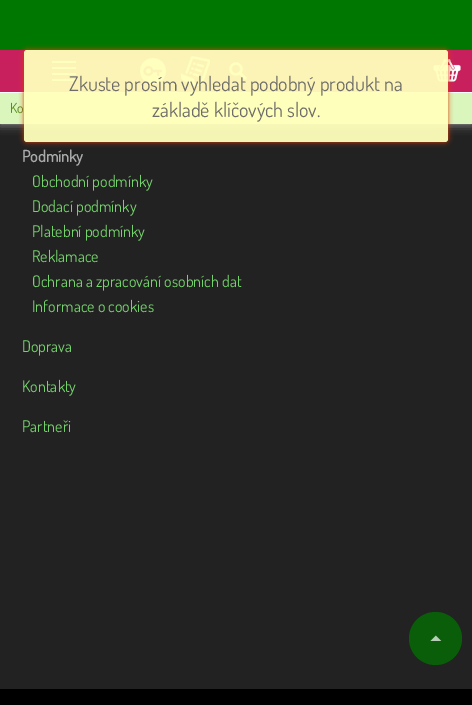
%!PS
<< /PageSize [472 705] /PageUsesTransparency true >> setpagedevice
/rgb { dup -16 bitshift 255 div exch dup -8 bitshift 255 and 255 div exch 255 and 255 div setrgbcolor } def
/font { [ exch dup neg 0 0 3 -1 roll 0 0 ] selectfont } def
/text { moveto show } def
/alpha { dup .setfillconstantalpha .setstrokeconstantalpha } def
/circle { newpath 0 360 arc closepath } def
/roundrect { 5 dict begin { /r /h /w /y /x } { exch def } forall
  x r add y moveto x w add y 2 copy h add r arct x w add y h add x 1 index r arct
  x y h add x y r arct x y 2 copy exch w add exch r arct closepath end } def
/shadow { 12 dict begin { /a /b /q /h /w /y /x } { exch def } forall gsave /was 0 def
  9 -2 -9 { dup b mul 4 div /e exch def 1 sub .425 mul 2.718 exch exp 1 add a .99 .min exch div /now exch def
    1 1 now sub 1 was sub div sub alpha /was now def
    w h .min e 2 mul add 0 gt { x e sub y e sub w e 2 mul add h e 2 mul add
      q e add b .6 mul add w h .min 2 div e add .min 0 .max roundrect fill } if } for grestore end } def
/picture { 5 dict begin { /h /w /y /x /name } { exch def } forall
  gsave x y translate w h scale
  w h 8 [w 0 0 h 0 0] name (r) file false 3 colorimage grestore end } def
0 .pushpdf14devicefilter
0 705 translate 1 -1 scale
4 setmiterlimit
/s1 { /Dosis-Regular 14 font 16#568D1B rgb } def
/s2 { /Dosis-Regular 20 font 16#6E6D6A rgb } def
/s3 { /Dosis-Bold 16 font 16#AAAAAA rgb } def
/s4 { /Dosis-Regular 16 font 16#75D36C rgb } def
16#222222 rgb
0 0 472 705 rectfill
16#007700 rgb
0 0 472 50 rectfill
16#AAAAAA rgb
0 92 472 32 0 5 1 shadow
16#C8205D rgb
0 50 472 42 rectfill
(pic1.raw) 52 61 24 20 picture
(pic2.raw) 140 58 26 26 picture
(pic3.raw) 181 56 29 30 picture
(pic4.raw) 229 62 18 18 picture
(pic5.raw) 433 59 28 23 picture
16#DBF6BD rgb
0 93 472 31 rectfill
16#FFFFFF rgb
0 92 472 1 rectfill
s1
(Ko) 10 113 text
gsave
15 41 moveto 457 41 lineto 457 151 lineto 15 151 lineto closepath 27 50 moveto 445 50 lineto 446.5 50 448 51.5 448 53 curveto 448 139 lineto 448 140.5 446.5 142 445 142 curveto 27 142 lineto 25.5 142 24 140.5 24 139 curveto 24 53 lineto 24 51.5 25.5 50 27 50 curveto closepath eoclip newpath
16#E23D04 rgb
24 50 424 92 3 2.5 0.95 shadow
grestore
0.95 alpha
16#FFFFBB rgb
24 50 424 92 3 roundrect fill
1 alpha
s2
(Zkuste prosím vyhledat podobný produkt na) 69 91 text
(základě klíčových slov.) 152 117 text
s3
(Podmínky) 22 162 text
s4
(Obchodní podmínky) 32 187 text
(Dodací podmínky) 32 212 text
(Platební podmínky) 32 237 text
(Reklamace) 32 262 text
(Ochrana a zpracování osobních dat) 32 287 text
(Informace o cookies) 32 312 text
(Doprava) 22 352 text
(Kontakty) 22 392 text
(Partneři) 22 432 text
16#0A5E0A rgb
435.5 638.5 26.5 circle fill
(pic6.raw) 430 635 12 6 picture
16#000000 rgb
0 689 472 16 rectfill
.poppdf14devicefilter showpage
